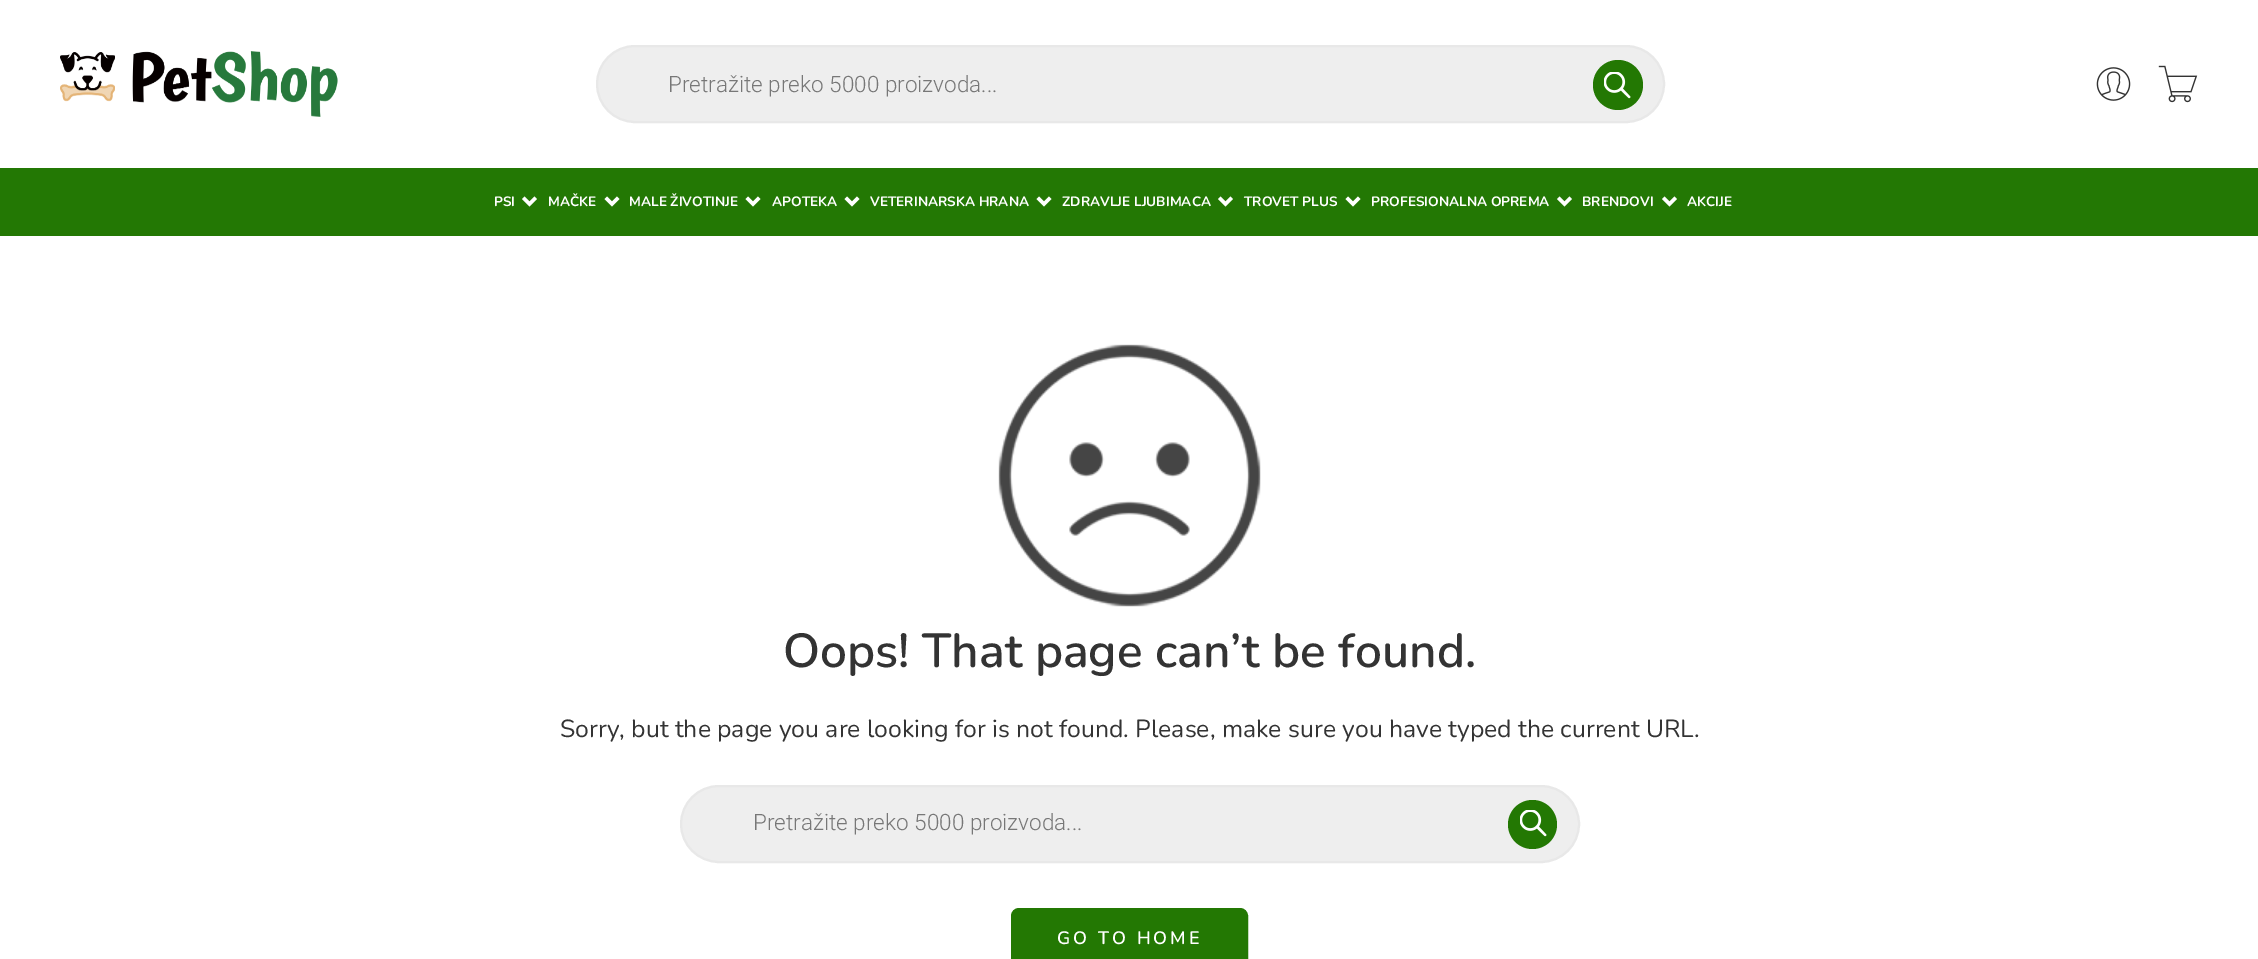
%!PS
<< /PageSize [2258 959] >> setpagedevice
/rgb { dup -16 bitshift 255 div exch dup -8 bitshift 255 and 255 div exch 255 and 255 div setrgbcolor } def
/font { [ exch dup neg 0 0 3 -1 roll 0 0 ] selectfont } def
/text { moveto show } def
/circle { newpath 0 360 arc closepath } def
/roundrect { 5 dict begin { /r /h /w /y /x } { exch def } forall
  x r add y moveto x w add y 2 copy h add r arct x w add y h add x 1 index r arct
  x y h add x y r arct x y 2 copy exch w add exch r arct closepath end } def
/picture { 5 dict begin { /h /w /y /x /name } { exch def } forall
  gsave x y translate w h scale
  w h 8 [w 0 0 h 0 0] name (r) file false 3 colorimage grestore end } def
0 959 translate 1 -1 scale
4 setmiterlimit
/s1 { /Roboto-Light 22.5 font 16#777777 rgb } def
/s2 { /Nunito-Bold 13.6 font 16#FFFFFF rgb } def
/s3 { /Nunito-SemiBold 47.75 font 16#333333 rgb } def
/s4 { /Nunito-Regular 24.75 font 16#333333 rgb } def
16#FFFFFF rgb
0 0 2258 959 rectfill
(pic1.raw) 60 51 278 66 picture
16#EEEEEE rgb
597 46 1067 76 38 roundrect gsave fill grestore
16#E8E8E8 rgb
2 setlinewidth
stroke
s1
(Pretražite preko 5000 proizvoda...) 668 92 text
16#237803 rgb
1618 85 25 circle fill
(pic2.raw) 1604 72 27 27 picture
(pic3.raw) 2096 67 35 34 picture
(pic4.raw) 2158 65 40 38 picture
16#237804 rgb
0 168 2258 68 rectfill
s2
(PSI) 494 206 text
(pic5.raw) 522 196 15 11 picture
(MAČKE) 548 206 text
(pic6.raw) 604 196 16 11 picture
(MALE ŽIVOTINJE) 629 206 text
(pic6.raw) 745 196 16 11 picture
(APOTEKA) 772 206 text
(pic6.raw) 844 196 16 11 picture
(VETERINARSKA HRANA) 870 206 text
(pic6.raw) 1036 196 16 11 picture
(ZDRAVLJE LJUBIMACA) 1062 206 text
(pic5.raw) 1218 196 15 11 picture
(TROVET PLUS) 1244 206 text
(pic6.raw) 1345 196 16 11 picture
(PROFESIONALNA OPREMA) 1371 206 text
(pic5.raw) 1557 196 15 11 picture
(BRENDOVI) 1582 206 text
(pic5.raw) 1662 196 15 11 picture
(AKCIJE) 1687 206 text
(pic7.raw) 998 344 263 263 picture
s3
(Oops! That page can’t be found.) 783 667 text
s4
(Sorry, but the page you are looking for is not found. Please, make sure you have typed the current URL.) 560 737 text
16#EEEEEE rgb
681 786 898 76 38 roundrect gsave fill grestore
16#E8E8E8 rgb
stroke
s1
(Pretražite preko 5000 proizvoda...) 753 830 text
16#237803 rgb
1532.5 824.5 24.5 circle fill
(pic2.raw) 1520 810 27 27 picture
1012 909 235 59 7 roundrect gsave fill grestore
stroke
/Nunito-SemiBold 18 font
16#FFFFFF rgb
1057 944 moveto 3 0 (GO TO HOME) ashow
showpage
